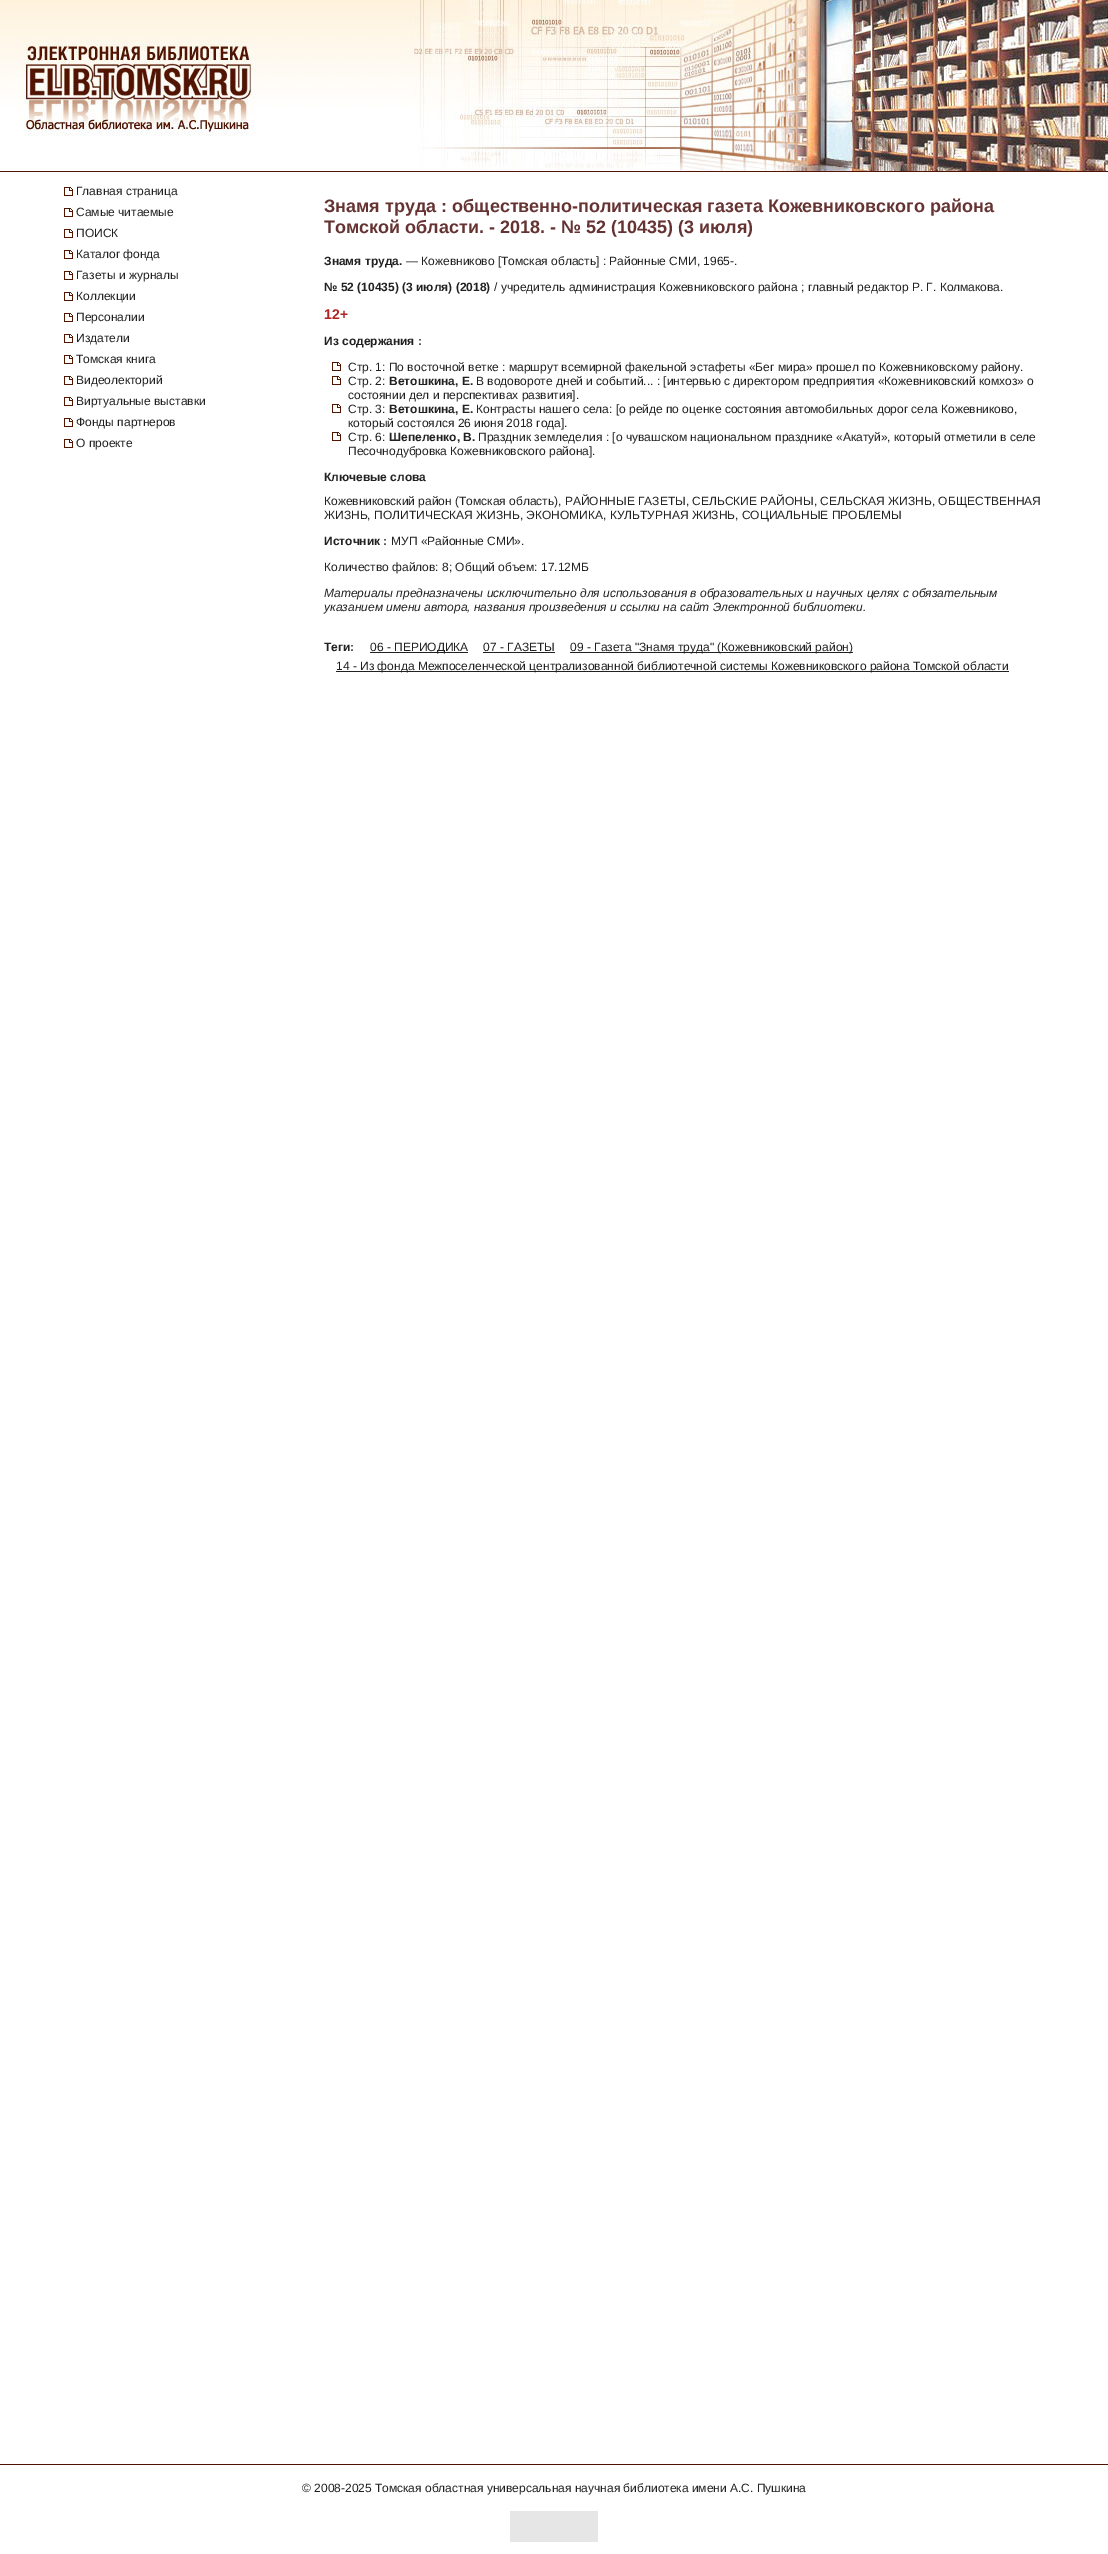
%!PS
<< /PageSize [1108 2554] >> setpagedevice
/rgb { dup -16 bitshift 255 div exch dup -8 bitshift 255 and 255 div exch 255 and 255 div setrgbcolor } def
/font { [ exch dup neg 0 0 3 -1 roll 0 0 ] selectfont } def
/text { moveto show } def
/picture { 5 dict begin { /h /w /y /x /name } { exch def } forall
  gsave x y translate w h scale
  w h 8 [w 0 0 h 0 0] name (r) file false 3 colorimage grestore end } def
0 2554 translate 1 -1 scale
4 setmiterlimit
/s1 { /LiberationSans-Regular 12 font 16#212121 rgb } def
/s2 { /LiberationSans-Bold 18 font 16#663333 rgb } def
/s3 { /LiberationSans-Bold 12 font 16#212121 rgb } def
/s4 { /LiberationSans-Bold 14 font 16#B22222 rgb } def
/s5 { /LiberationSans-Italic 12 font 16#212121 rgb } def
16#FFFFFF rgb
0 0 1108 2554 rectfill
(pic1.raw) 0 0 414 106 picture
16#511304 rgb
0 171 1108 1 rectfill
(pic2.raw) 16 40 240 96 picture
(pic3.raw) 414 0 694 171 picture
(pic4.raw) 64 187 9 9 picture
s1
(Главная страница) 76 195 text
(pic4.raw) 64 208 9 9 picture
(Самые читаемые) 76 216 text
(pic4.raw) 64 229 9 9 picture
(ПОИСК) 76 237 text
(pic4.raw) 64 250 9 9 picture
(Каталог фонда) 76 258 text
(pic4.raw) 64 271 9 9 picture
(Газеты и журналы) 76 279 text
(pic4.raw) 64 292 9 9 picture
(Коллекции) 76 300 text
(pic4.raw) 64 313 9 9 picture
(Персоналии) 76 321 text
(pic4.raw) 64 334 9 9 picture
(Издатели) 76 342 text
(pic4.raw) 64 355 9 9 picture
(Томская книга) 76 363 text
(pic4.raw) 64 376 9 9 picture
(Видеолекторий) 76 384 text
(pic4.raw) 64 397 9 9 picture
(Виртуальные выставки) 76 405 text
(pic4.raw) 64 418 9 9 picture
(Фонды партнеров) 76 426 text
(pic4.raw) 64 439 9 9 picture
(О проекте) 76 447 text
s2
(Знамя труда : общественно-политическая газета Кожевниковского района) 324 212 text
(Томской области. - 2018. - № 52 \(10435\) \(3 июля\)) 324 233 text
s3
(Знамя труда.) 324 265 text
s1
(— Кожевниково [Томская область] : Районные СМИ, 1965-.) 406 265 text
s3
(№ 52 \(10435\) \(3 июля\) \(2018\)) 324 291 text
s1
(/ учредитель администрация Кожевниковского района ; главный редактор Р. Г. Колмакова.) 494 291 text
s4
(12+) 324 319 text
s3
(Из содержания :) 324 345 text
(pic4.raw) 332 362 9 9 picture
s1
(Стр. 1: По восточной ветке : маршрут всемирной факельной эстафеты «Бег мира» прошел по Кожевниковскому району.) 348 371 text
(pic4.raw) 332 376 9 9 picture
(Стр. 2:) 348 385 text
s3
(Ветошкина, Е.) 389 385 text
s1
(В водовороте дней и событий... : [интервью с директором предприятия «Кожевниковский комхоз» о) 476 385 text
(состоянии дел и перспективах развития].) 348 399 text
(pic4.raw) 332 404 9 9 picture
(Стр. 3:) 348 413 text
s3
(Ветошкина, Е.) 389 413 text
s1
(Контрасты нашего села: [о рейде по оценке состояния автомобильных дорог села Кожевниково,) 476 413 text
(который состоялся 26 июня 2018 года].) 348 427 text
(pic4.raw) 332 432 9 9 picture
(Стр. 6:) 348 441 text
s3
(Шепеленко, В.) 389 441 text
s1
(Праздник земледелия : [о чувашском национальном празднике «Акатуй», который отметили в селе) 478 441 text
(Песочнодубровка Кожевниковского района].) 348 455 text
s3
(Ключевые слова) 324 481 text
s1
(Кожевниковский район \(Томская область\), РАЙОННЫЕ ГАЗЕТЫ, СЕЛЬСКИЕ РАЙОНЫ, СЕЛЬСКАЯ ЖИЗНЬ, ОБЩЕСТВЕННАЯ) 324 505 text
(ЖИЗНЬ, ПОЛИТИЧЕСКАЯ ЖИЗНЬ, ЭКОНОМИКА, КУЛЬТУРНАЯ ЖИЗНЬ, СОЦИАЛЬНЫЕ ПРОБЛЕМЫ) 324 519 text
s3
(Источник :) 324 545 text
s1
(МУП «Районные СМИ».) 391 545 text
(Количество файлов: 8; Общий объем: 17.12МБ) 324 571 text
s5
(Материалы предназначены исключительно для использования в образовательных и научных целях с обязательным) 324 597 text
(указанием имени автора, названия произведения и ссылки на сайт Электронной библиотеки.) 324 611 text
s3
(Теги:) 324 651 text
370 652 98 1 rectfill
s1
(06 - ПЕРИОДИКА) 370 651 text
(07 - ГАЗЕТЫ) 483 651 text
483 652 72 1 rectfill
570 652 283 1 rectfill
(09 - Газета "Знамя труда" \(Кожевниковский район\)) 570 651 text
336 671 673 1 rectfill
(14 - Из фонда Межпоселенческой централизованной библиотечной системы Кожевниковского района Томской области) 336 670 text
16#511304 rgb
0 2464 1108 1 rectfill
s1
(© 2008-2025 Томская областная универсальная научная библиотека имени А.С. Пушкина) 302 2492 text
16#E6E6E6 rgb
510 2511 88 31 rectfill
showpage
